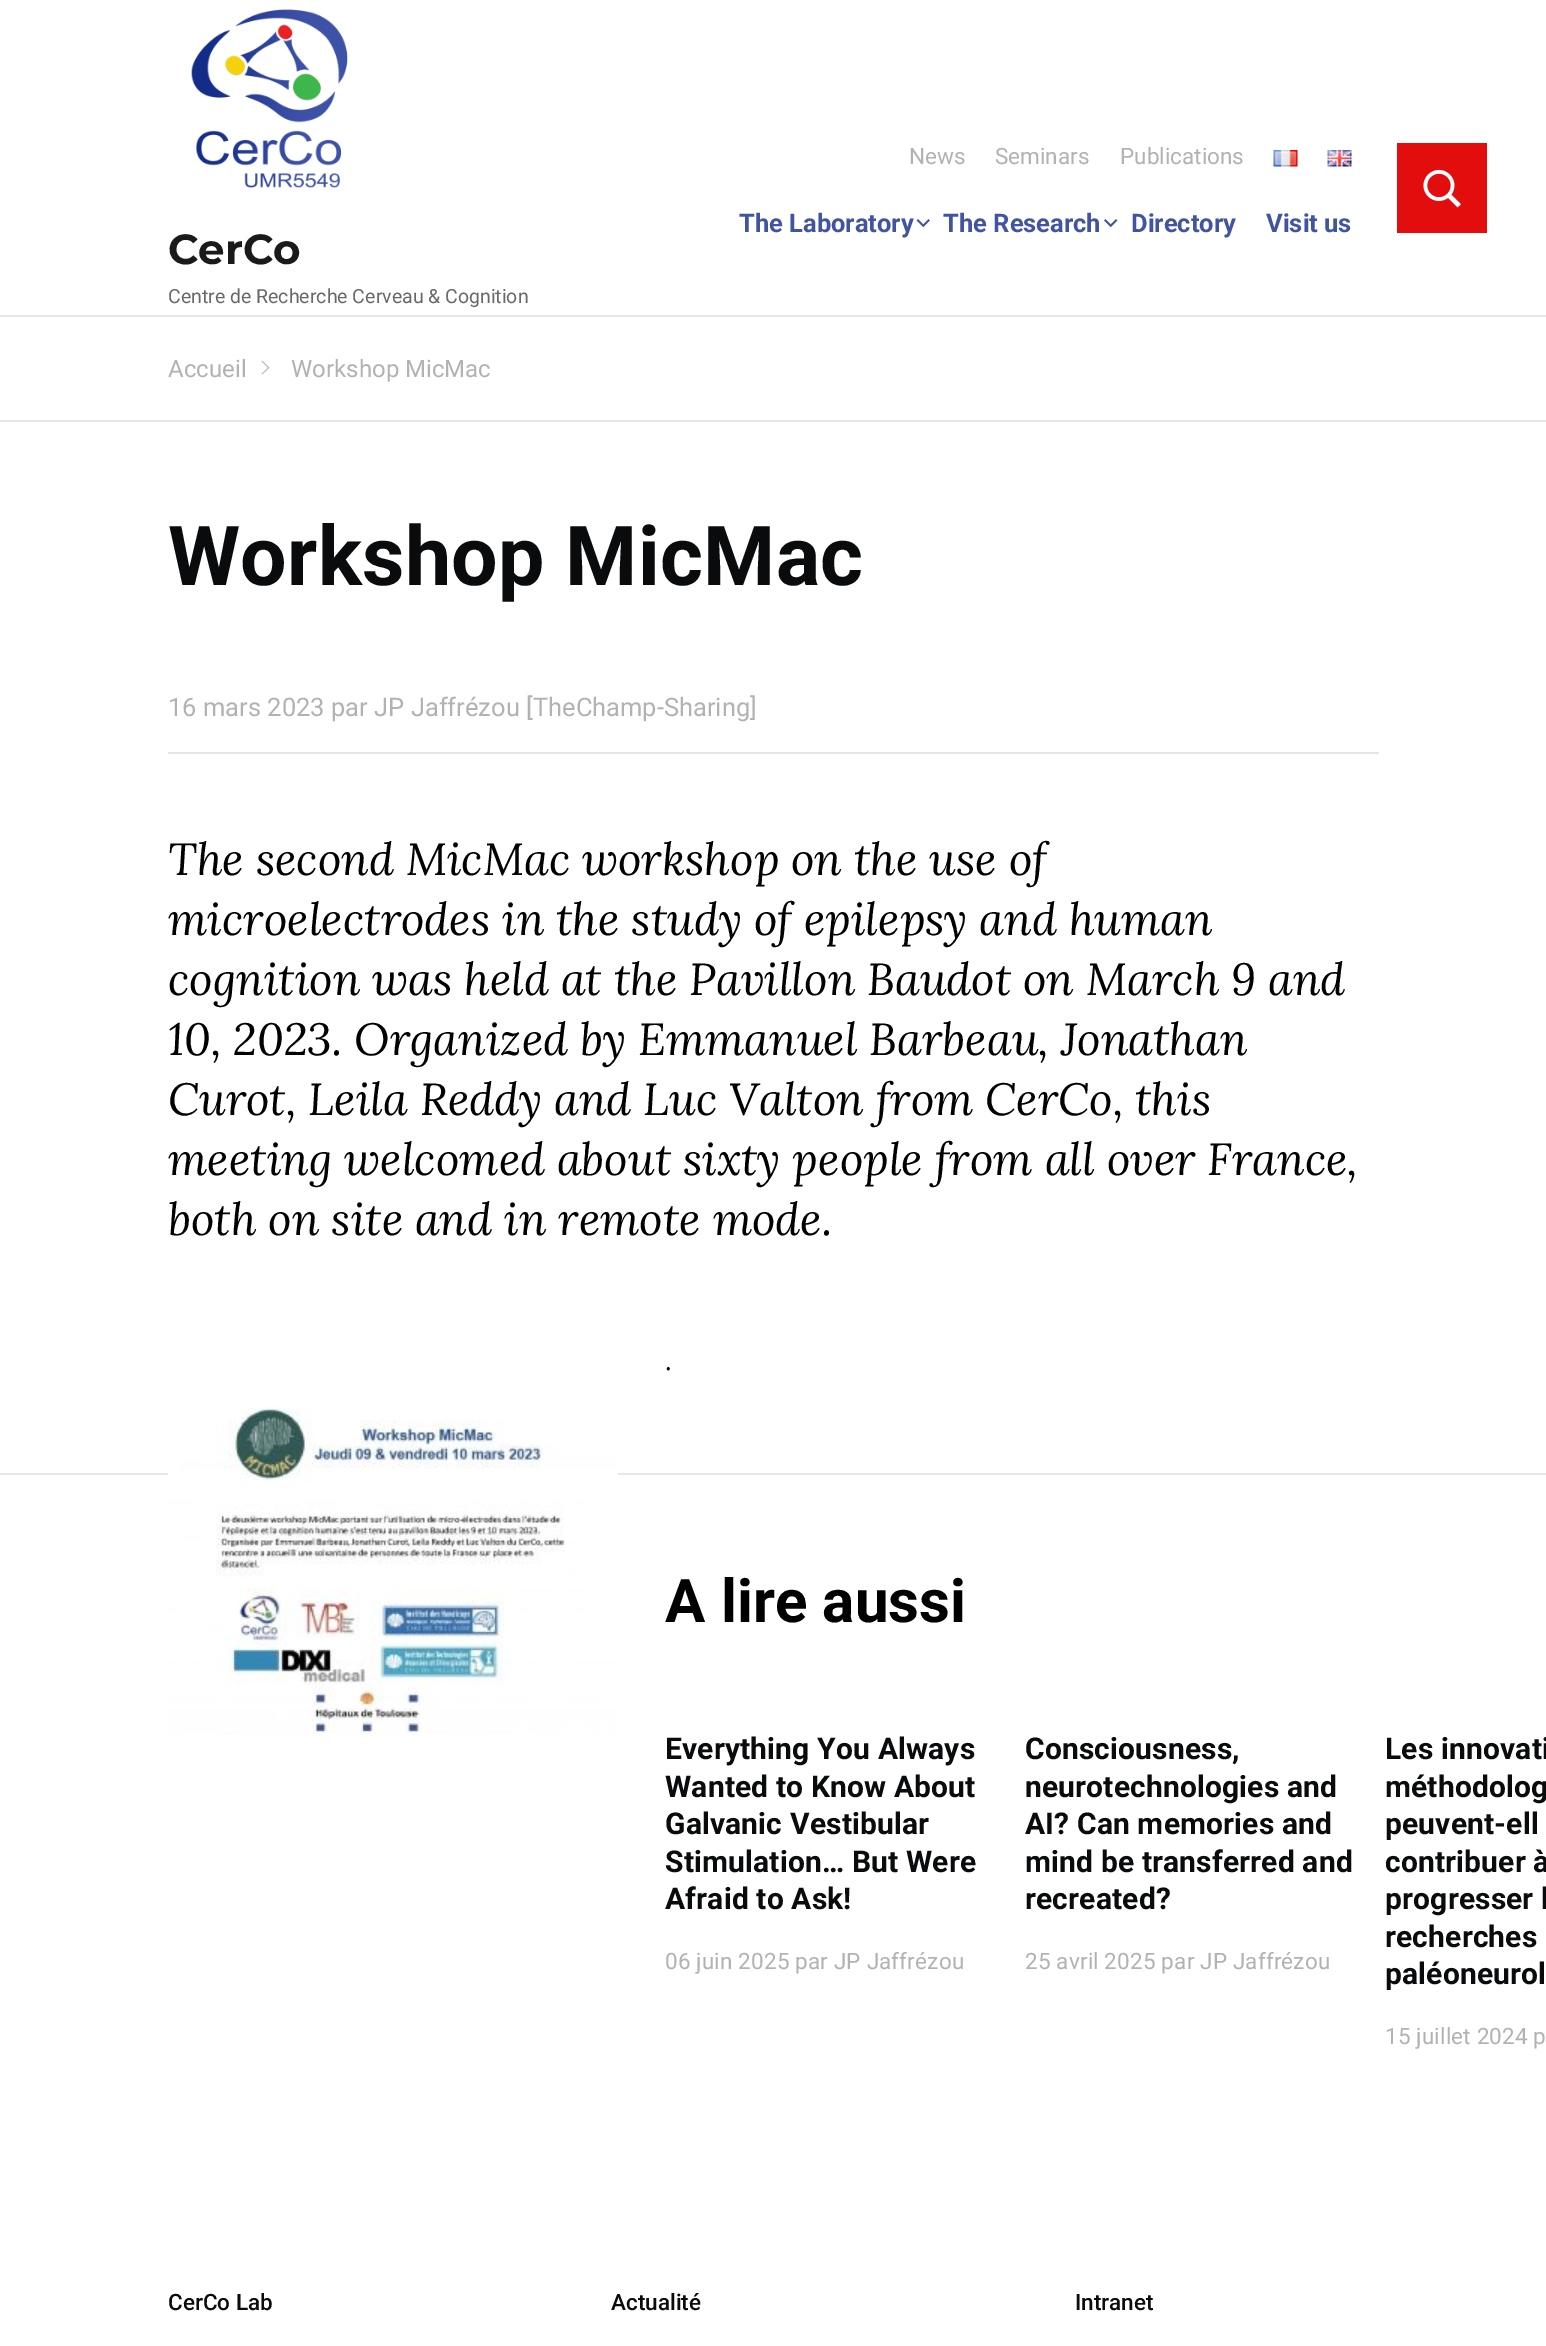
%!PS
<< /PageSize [1546 2346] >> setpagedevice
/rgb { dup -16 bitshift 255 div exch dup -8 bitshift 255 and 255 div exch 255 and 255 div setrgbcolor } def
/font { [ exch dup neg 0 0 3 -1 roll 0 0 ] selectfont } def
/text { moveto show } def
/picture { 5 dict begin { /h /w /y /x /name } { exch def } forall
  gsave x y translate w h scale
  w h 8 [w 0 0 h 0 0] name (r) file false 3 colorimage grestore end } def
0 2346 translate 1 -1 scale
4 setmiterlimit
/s1 { /Roboto-Regular 22.5 font 16#B2B2B2 rgb } def
/s2 { /Roboto-Bold 25.5 font 16#4054A1 rgb } def
/s3 { /Montserrat-Bold 42 font 16#1A1A1A rgb } def
/s4 { /Roboto-Regular 19.5 font 16#686868 rgb } def
/s5 { /Roboto-Regular 24 font 16#B2B2B2 rgb } def
/s6 { /Roboto-Regular 25.5 font 16#B2B2B2 rgb } def
/s7 { /Lora-Italic 45 font 16#000000 rgb } def
/s8 { /Lora-Regular 27 font 16#000000 rgb } def
/s9 { /Roboto-Medium 22.5 font 16#0A0B0D rgb } def
16#FFFFFF rgb
0 0 1546 2346 rectfill
16#E6E6E6 rgb
0 315 1546 2 rectfill
s1
(News) 909 164 text
(Seminars) 995 164 text
(Publications) 1120 164 text
(pic1.raw) 1273 150 25 17 picture
(pic2.raw) 1327 150 25 17 picture
16#E30D0D rgb
1397 143 90 90 rectfill
(pic3.raw) 1423 169 38 39 picture
s2
(The Laboratory) 739 232 text
(pic4.raw) 916 219 14 9 picture
(The Research) 943 232 text
(pic5.raw) 1104 219 14 9 picture
(Directory) 1131 232 text
(Visit us) 1266 232 text
(pic6.raw) 191 9 157 179 picture
s3
(CerCo) 168 264 text
s4
(Centre de Recherche Cerveau & Cognition) 168 303 text
16#E6E6E6 rgb
0 420 1546 2 rectfill
s5
(Accueil) 168 377 text
(pic7.raw) 261 360 9 15 picture
(Workshop MicMac) 291 377 text
/Roboto-Bold 82.5 font
16#0A0B0D rgb
168 585 moveto 0.25 0 (Workshop MicMac) ashow
s6
(16 mars 2023 par JP Jaffrézou [TheChamp-Sharing]) 168 716 text
16#E6E6E6 rgb
168 752 1211 2 rectfill
s7
(The second MicMac workshop on the use of) 168 875 text
(microelectrodes in the study of epilepsy and human) 168 935 text
(cognition was held at the Pavillon Baudot on March 9 and) 168 995 text
(10, 2023. Organized by Emmanuel Barbeau, Jonathan) 168 1055 text
(Curot, Leila Reddy and Luc Valton from CerCo, this) 168 1115 text
(meeting welcomed about sixty people from all over France,) 168 1175 text
(both on site and in remote mode.) 168 1235 text
s8
(.) 665 1370 text
16#E6E6E6 rgb
0 1473 1546 2 rectfill
(pic8.raw) 168 1406 450 328 picture
/Roboto-Bold 60 font
16#000000 rgb
665 1622 moveto 0.15 0 (A lire aussi) ashow
/Roboto-Bold 30 font
16#0A0B0D rgb
665 1759 moveto 0.15 0 (Everything You Always) ashow
665 1797 moveto 0.15 0 (Wanted to Know About) ashow
665 1834 moveto 0.15 0 (Galvanic Vestibular) ashow
665 1872 moveto 0.15 0 (Stimulation… But Were) ashow
665 1909 moveto 0.15 0 (Afraid to Ask!) ashow
/Roboto-Regular 22.5 font
16#B2B2B2 rgb
665 1969 moveto 0.15 0 (06 juin 2025 par JP Jaffrézou) ashow
/Roboto-Bold 30 font
16#0A0B0D rgb
1025 1759 moveto 0.15 0 (Consciousness,) ashow
1025 1797 moveto 0.15 0 (neurotechnologies and) ashow
1025 1834 moveto 0.15 0 (AI? Can memories and) ashow
1025 1872 moveto 0.15 0 (mind be transferred and) ashow
1025 1909 moveto 0.15 0 (recreated?) ashow
/Roboto-Regular 22.5 font
16#B2B2B2 rgb
1025 1969 moveto 0.15 0 (25 avril 2025 par JP Jaffrézou) ashow
/Roboto-Bold 30 font
16#0A0B0D rgb
1385 1759 moveto 0.15 0 (Les innovati) ashow
1385 1797 moveto 0.15 0 (méthodolog) ashow
1385 1834 moveto 0.15 0 (peuvent-ell) ashow
1385 1872 moveto 0.15 0 (contribuer à) ashow
1385 1909 moveto 0.15 0 (progresser l) ashow
1385 1947 moveto 0.15 0 (recherches) ashow
1385 1984 moveto 0.15 0 (paléoneurol) ashow
/Roboto-Regular 22.5 font
16#B2B2B2 rgb
1385 2044 moveto 0.15 0 (15 juillet 2024 p) ashow
s9
(CerCo Lab) 168 2310 text
(Actualité) 611 2310 text
(Intranet) 1075 2310 text
showpage
